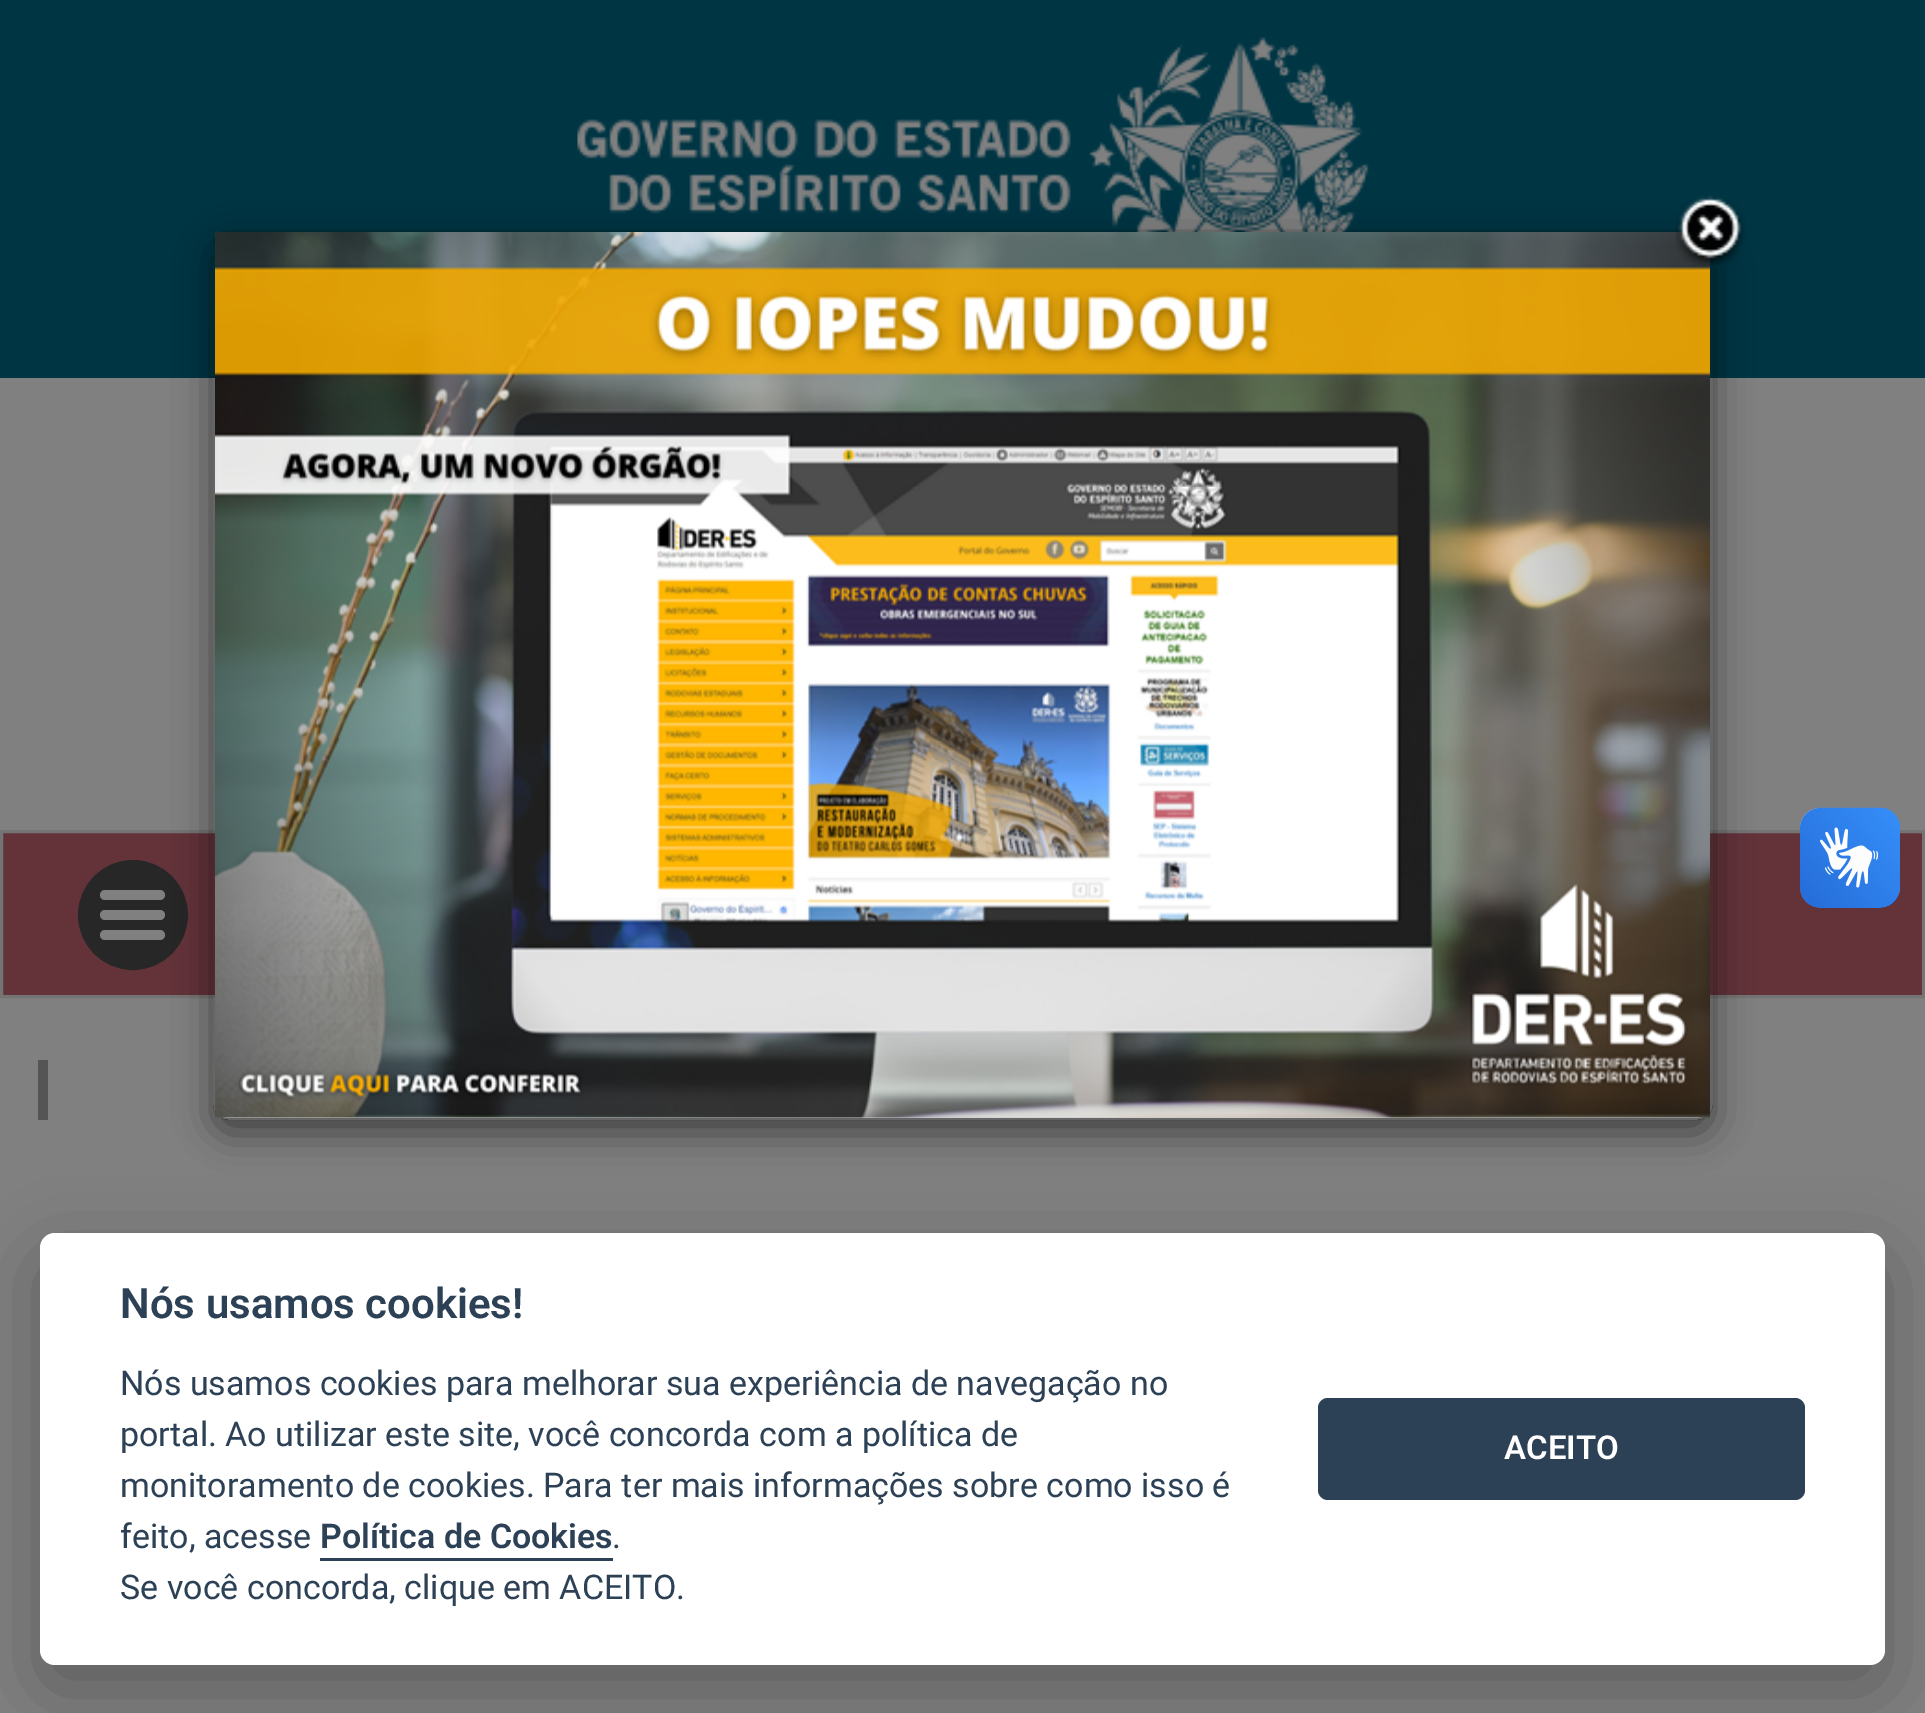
%!PS
<< /PageSize [1925 1713] /PageUsesTransparency true >> setpagedevice
/rgb { dup -16 bitshift 255 div exch dup -8 bitshift 255 and 255 div exch 255 and 255 div setrgbcolor } def
/font { [ exch dup neg 0 0 3 -1 roll 0 0 ] selectfont } def
/text { moveto show } def
/alpha { dup .setfillconstantalpha .setstrokeconstantalpha } def
/circle { newpath 0 360 arc closepath } def
/roundrect { 5 dict begin { /r /h /w /y /x } { exch def } forall
  x r add y moveto x w add y 2 copy h add r arct x w add y h add x 1 index r arct
  x y h add x y r arct x y 2 copy exch w add exch r arct closepath end } def
/shadow { 12 dict begin { /a /b /q /h /w /y /x } { exch def } forall gsave /was 0 def
  9 -2 -9 { dup b mul 4 div /e exch def 1 sub .425 mul 2.718 exch exp 1 add a .99 .min exch div /now exch def
    1 1 now sub 1 was sub div sub alpha /was now def
    w h .min e 2 mul add 0 gt { x e sub y e sub w e 2 mul add h e 2 mul add
      q e add b .6 mul add w h .min 2 div e add .min 0 .max roundrect fill } if } for grestore end } def
/picture { 5 dict begin { /h /w /y /x /name } { exch def } forall
  gsave x y translate w h scale
  w h 8 [w 0 0 h 0 0] name (r) file false 3 colorimage grestore end } def
0 .pushpdf14devicefilter
0 1713 translate 1 -1 scale
4 setmiterlimit
/s1 { /Roboto-SemiBold 42 font 16#2D4156 rgb } def
/s2 { /Roboto-Regular 34 font 16#2D4156 rgb } def
/s3 { /Roboto-SemiBold 34 font 16#2D4156 rgb } def
/s4 { /Roboto-SemiBold 33 font 16#FFFFFF rgb } def
16#808080 rgb
0 0 1925 1713 rectfill
16#003544 rgb
0 0 1925 378 rectfill
(pic1.raw) 577 37 792 195 picture
16#555555 rgb
38 1060 10 60 rectfill
16#64333A rgb
1.5 831.5 moveto 1923.5 831.5 lineto 1923.5 996.5 lineto 1.5 996.5 lineto closepath gsave fill grestore
16#747474 rgb
3 setlinewidth
stroke
16#272727 rgb
133 915 53.5 circle gsave fill grestore
stroke
16#808080 rgb
100 890 65 10 5 roundrect fill
100 910 65 10 5 roundrect fill
100 930 65 10 5 roundrect fill
gsave
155 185 moveto 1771 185 lineto 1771 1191 lineto 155 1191 lineto closepath 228 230 moveto 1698 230 lineto 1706.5 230 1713 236.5 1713 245 curveto 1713 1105 lineto 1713 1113.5 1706.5 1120 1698 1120 curveto 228 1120 lineto 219.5 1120 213 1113.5 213 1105 curveto 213 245 lineto 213 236.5 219.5 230 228 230 curveto closepath eoclip newpath
16#000000 rgb
213 243 1500 890 15 19 0.5 shadow
grestore
16#FFFFFF rgb
215 233 1495 885 13 roundrect fill
0.2 alpha
16#000000 rgb
214.5 231.5 1497 887 13.5 roundrect stroke
1 alpha
(pic2.raw) 215 232 1495 886 picture
(pic3.raw) 1675 195 71 71 picture
(pic4.raw) 1800 807 100 101 picture
(pic5.raw) 1800 808 100 100 picture
16#020203 rgb
40 1258 1845 432 15 37.5 0.28 shadow
16#FFFFFF rgb
40 1233 1845 432 15 roundrect fill
s1
(Nós usamos cookies!) 120 1318 text
s2
(Nós usamos cookies para melhorar sua experiência de navegação no) 120 1395 text
(portal. Ao utilizar este site, você concorda com a política de) 120 1446 text
(monitoramento de cookies. Para ter mais informações sobre como isso é) 120 1497 text
(feito, acesse) 120 1548 text
s3
(Política de Cookies) 320 1548 text
320 1558 293 3 rectfill
s2
(.) 612 1548 text
(Se você concorda, clique em ACEITO.) 120 1599 text
1318 1398 487 102 10 roundrect fill
s4
(ACEITO) 1504 1459 text
.poppdf14devicefilter showpage
